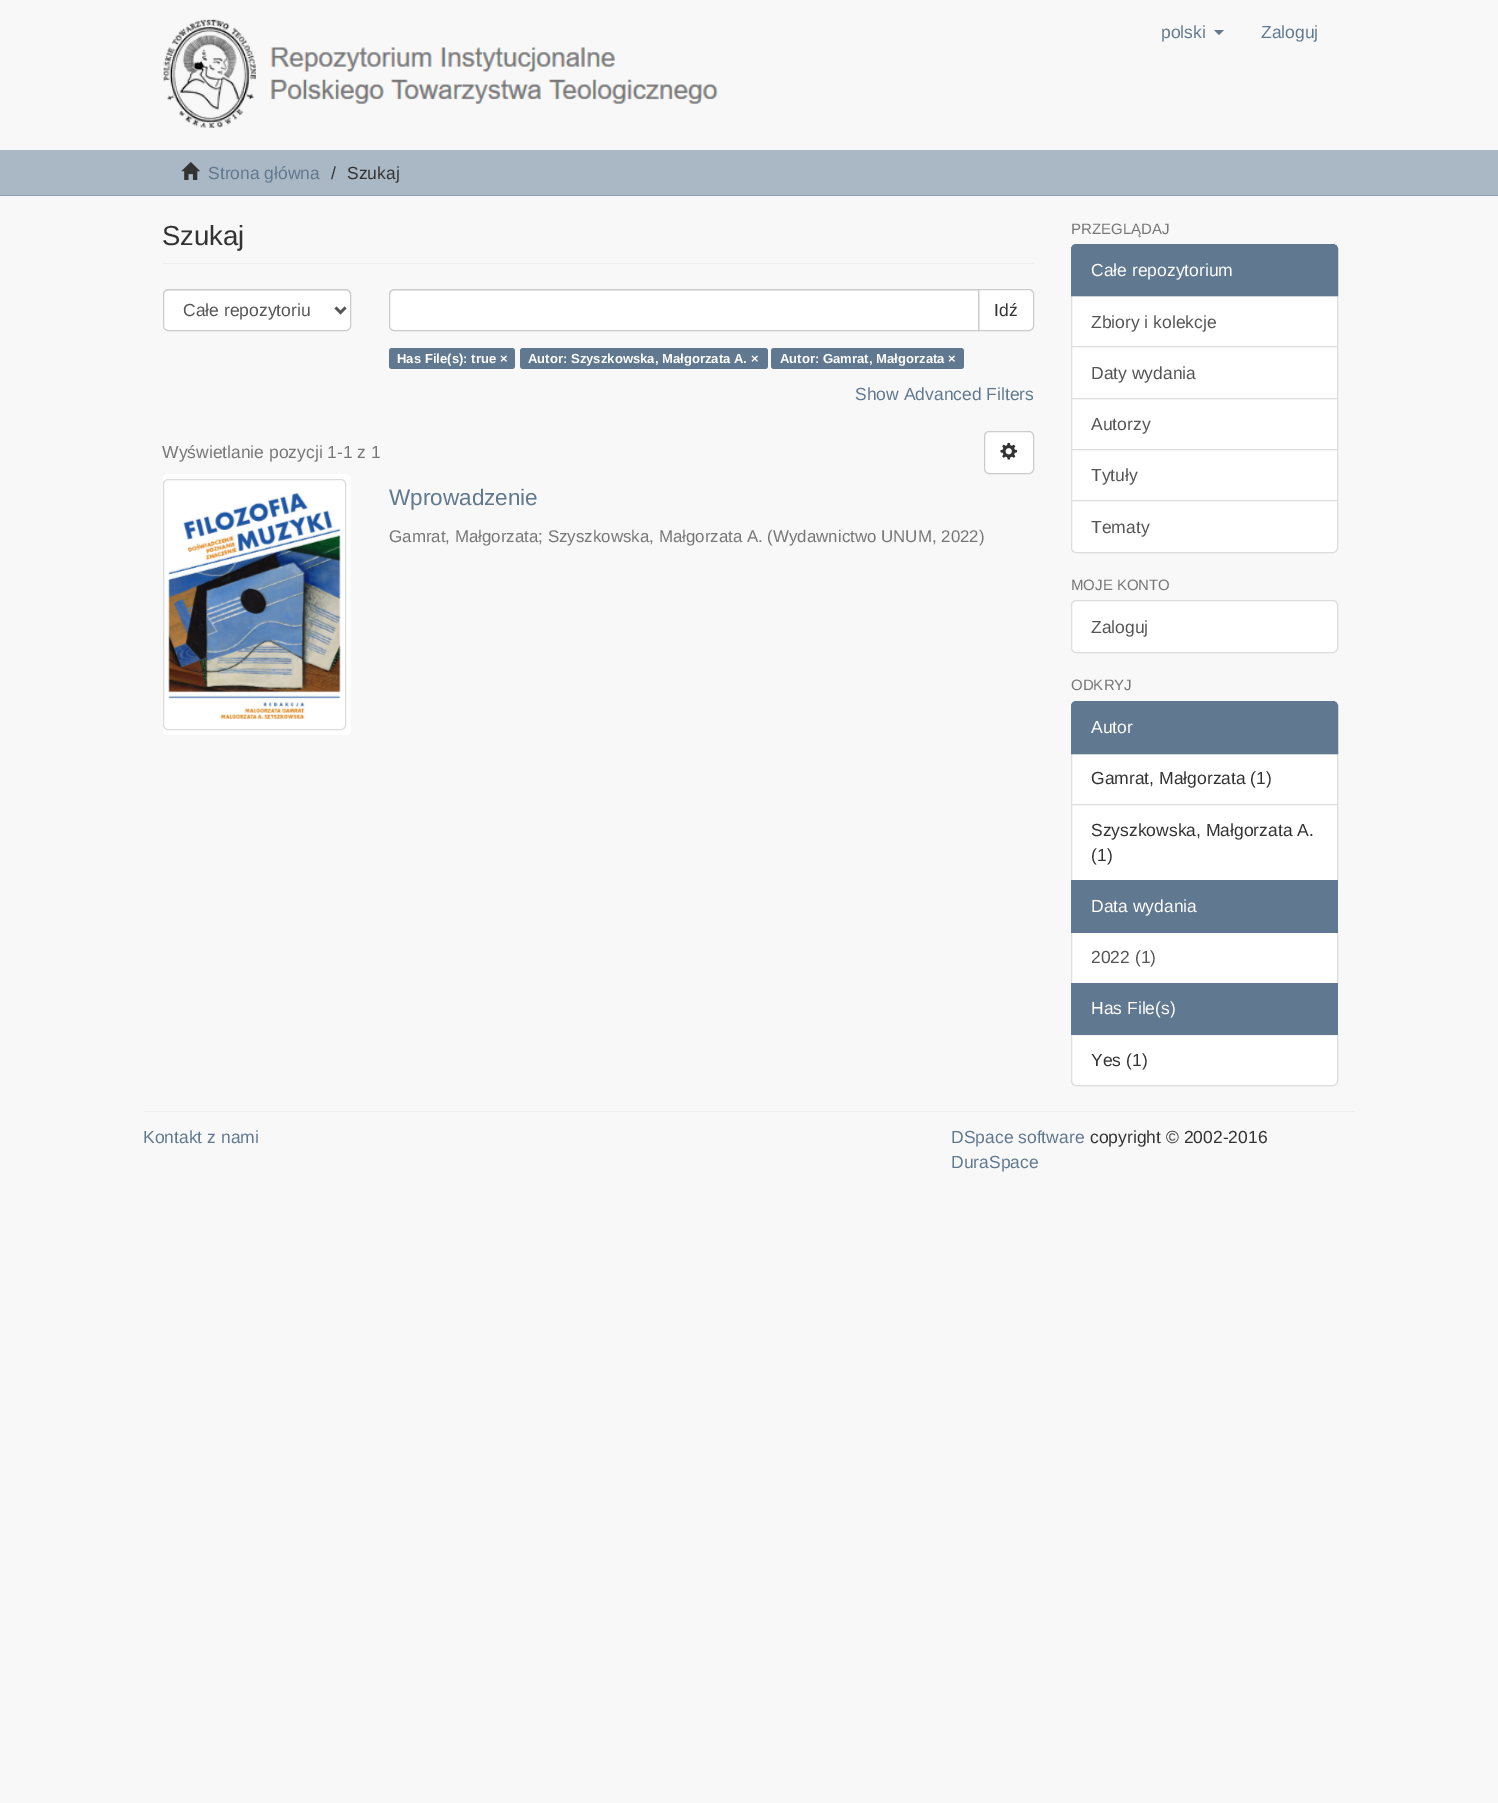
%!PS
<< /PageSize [1498 1803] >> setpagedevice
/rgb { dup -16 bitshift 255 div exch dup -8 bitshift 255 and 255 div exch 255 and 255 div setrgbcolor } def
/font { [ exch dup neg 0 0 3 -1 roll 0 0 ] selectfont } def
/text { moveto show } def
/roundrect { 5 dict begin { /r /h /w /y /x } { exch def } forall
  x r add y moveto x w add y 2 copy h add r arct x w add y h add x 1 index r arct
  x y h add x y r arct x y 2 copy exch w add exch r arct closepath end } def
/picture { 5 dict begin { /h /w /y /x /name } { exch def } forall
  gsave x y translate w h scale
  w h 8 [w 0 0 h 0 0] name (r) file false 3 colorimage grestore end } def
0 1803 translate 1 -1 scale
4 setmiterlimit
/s1 { /LiberationSans-Regular 17.5 font 16#607890 rgb } def
/s2 { /LiberationSans-Regular 17.5 font 16#333333 rgb } def
/s3 { /LiberationSans-Regular 27.5 font 16#333333 rgb } def
/s4 { /LiberationSans-Regular 17.5 font 16#555555 rgb } def
/s5 { /LiberationSans-Bold 13.1 font 16#FFFFFF rgb } def
/s6 { /LiberationSans-Regular 17.5 font 16#777777 rgb } def
/s7 { /LiberationSans-Regular 22.5 font 16#607890 rgb } def
/s8 { /LiberationSans-Regular 16.9 font 16#777777 rgb } def
/s9 { /LiberationSans-Regular 15 font 16#777777 rgb } def
/s10 { /LiberationSans-Regular 17.5 font 16#FFFFFF rgb } def
16#F8F8F8 rgb
0 0 1498 1803 rectfill
(pic1.raw) 163 19 555 109 picture
s1
(polski) 1161 38 text
1214 30 moveto 1224 30 lineto 1219 35 lineto closepath fill
(Zaloguj) 1261 38 text
16#AAB8C6 rgb
0 150 1498 45 rectfill
16#8B9EB2 rgb
0 195 1498 1 rectfill
(pic2.raw) 181 162 20 18 picture
s1
(Strona główna) 208 179 text
s2
(/) 331 179 text
(Szukaj) 347 179 text
16#EEEEEE rgb
163 263 871 1 rectfill
s3
(Szukaj) 162 245 text
16#FFFFFF rgb
163 289 188 42 5 roundrect fill
16#ECECEC rgb
168 291 moveto 346 291 lineto 348 291 350 293 350 295 curveto 350 292 349 290 346 290 curveto 167 290 lineto 165 291 164 293 164 295 curveto 164 293 165 291 168 291 curveto closepath fill
16#CCCCCC rgb
163.5 289.5 187 41 4.5 roundrect stroke
16#555555 rgb
2.5 setlinewidth
335.5 307.5 moveto 340.5 312.5 lineto 345.5 307.5 lineto stroke
s4
(Całe repozytoriu) 183 316 text
16#FFFFFF rgb
978.5 289.5 moveto 1029 289.5 lineto 1031.5 289.5 1033.5 291.5 1033.5 294 curveto 1033.5 326 lineto 1033.5 328.5 1031.5 330.5 1029 330.5 curveto 978.5 330.5 lineto closepath gsave fill grestore
16#CCCCCC rgb
1 setlinewidth
stroke
16#FFFFFF rgb
394 289 moveto 979 289 lineto 979 331 lineto 394 331 lineto 391 331 389 329 389 326 curveto 389 294 lineto 389 291 391 289 394 289 curveto closepath fill
16#ECECEC rgb
394 291 moveto 978 291 lineto 978 290 lineto 394 290 lineto 391 290 390 292 390 295 curveto 390 293 392 291 394 291 curveto closepath fill
16#CCCCCC rgb
394 289.5 moveto 978.5 289.5 lineto 978.5 330.5 lineto 394 330.5 lineto 391.5 330.5 389.5 328.5 389.5 326 curveto 389.5 294 lineto 389.5 291.5 391.5 289.5 394 289.5 curveto closepath stroke
s2
(Idź) 994 316 text
16#607890 rgb
389 348 126 21 3 roundrect fill
s5
(Has File\(s\): true ×) 397 363 text
16#607890 rgb
520 348 248 21 3 roundrect fill
s5
(Autor: Szyszkowska, Małgorzata A. ×) 528 363 text
16#607890 rgb
771 348 193 21 3 roundrect fill
s5
(Autor: Gamrat, Małgorzata ×) 780 363 text
s1
(Show Advanced Filters) 855 400 text
s6
(Wyświetlanie pozycji 1-1 z 1) 162 458 text
16#FFFFFF rgb
984.5 431.5 49 42 4.5 roundrect gsave fill grestore
16#CCCCCC rgb
stroke
(pic3.raw) 1000 442 18 18 picture
16#FFFFFF rgb
163 474 188 261 5 roundrect fill
16#DDDDDD rgb
163.5 479.5 182 250 4.5 roundrect stroke
(pic4.raw) 168 492 173 227 picture
s7
(Wprowadzenie) 389 505 text
s8
(Gamrat, Małgorzata; Szyszkowska, Małgorzata A. \(Wydawnictwo UNUM, 2022\)) 389 542 text
s9
(PRZEGLĄDAJ) 1071 234 text
16#FFFFFF rgb
1072 296 265 50 rectfill
16#DDDDDD rgb
1071.5 295.5 266 52 rectstroke
16#607890 rgb
1076 244.5 moveto 1333 244.5 lineto 1335.5 244.5 1337.5 246.5 1337.5 249 curveto 1337.5 295.5 lineto 1071.5 295.5 lineto 1071.5 249 lineto 1071.5 246.5 1073.5 244.5 1076 244.5 curveto closepath gsave fill grestore
stroke
s10
(Całe repozytorium) 1091 276 text
s4
(Zbiory i kolekcje) 1091 328 text
16#FFFFFF rgb
1071.5 346.5 moveto 1337.5 346.5 lineto 1337.5 398.5 lineto 1071.5 398.5 lineto closepath gsave fill grestore
16#DDDDDD rgb
stroke
s4
(Daty wydania) 1091 379 text
16#FFFFFF rgb
1071.5 398.5 moveto 1337.5 398.5 lineto 1337.5 449.5 lineto 1071.5 449.5 lineto closepath gsave fill grestore
16#DDDDDD rgb
stroke
s4
(Autorzy) 1091 430 text
16#FFFFFF rgb
1071.5 449.5 moveto 1337.5 449.5 lineto 1337.5 500.5 lineto 1071.5 500.5 lineto closepath gsave fill grestore
16#DDDDDD rgb
stroke
s4
(Tytuły) 1091 481 text
16#FFFFFF rgb
1071.5 500.5 moveto 1337.5 500.5 lineto 1337.5 548 lineto 1337.5 550.5 1335.5 552.5 1333 552.5 curveto 1076 552.5 lineto 1073.5 552.5 1071.5 550.5 1071.5 548 curveto closepath gsave fill grestore
16#DDDDDD rgb
stroke
s4
(Tematy) 1091 533 text
s9
(MOJE KONTO) 1071 590 text
16#FFFFFF rgb
1071.5 600.5 266 52 4.5 roundrect gsave fill grestore
16#DDDDDD rgb
stroke
s4
(Zaloguj) 1091 633 text
s9
(ODKRYJ) 1071 690 text
16#FFFFFF rgb
1071.5 753.5 moveto 1337.5 753.5 lineto 1337.5 804.5 lineto 1071.5 804.5 lineto closepath gsave fill grestore
16#DDDDDD rgb
stroke
16#607890 rgb
1076 701.5 moveto 1333 701.5 lineto 1335.5 701.5 1337.5 703.5 1337.5 706 curveto 1337.5 753.5 lineto 1071.5 753.5 lineto 1071.5 706 lineto 1071.5 703.5 1073.5 701.5 1076 701.5 curveto closepath gsave fill grestore
stroke
s10
(Autor) 1091 733 text
s2
(Gamrat, Małgorzata \(1\)) 1091 784 text
16#FFFFFF rgb
1071.5 804.5 moveto 1337.5 804.5 lineto 1337.5 880.5 lineto 1071.5 880.5 lineto closepath gsave fill grestore
16#DDDDDD rgb
stroke
s2
(Szyszkowska, Małgorzata A.) 1091 836 text
(\(1\)) 1091 861 text
16#FFFFFF rgb
1072 933 265 50 rectfill
16#DDDDDD rgb
1071.5 931.5 266 52 rectstroke
16#607890 rgb
1071 880 267 53 rectfill
s10
(Data wydania) 1091 912 text
s4
(2022 \(1\)) 1091 963 text
16#FFFFFF rgb
1071.5 1034.5 moveto 1337.5 1034.5 lineto 1337.5 1081 lineto 1337.5 1083.5 1335.5 1085.5 1333 1085.5 curveto 1076 1085.5 lineto 1073.5 1085.5 1071.5 1083.5 1071.5 1081 curveto closepath gsave fill grestore
16#DDDDDD rgb
stroke
16#607890 rgb
1071 983 267 52 rectfill
s10
(Has File\(s\)) 1091 1014 text
s2
(Yes \(1\)) 1091 1066 text
16#EEEEEE rgb
144 1111 1211 1 rectfill
s1
(Kontakt z nami) 143 1143 text
(DSpace software) 951 1143 text
s2
(copyright © 2002-2016) 1090 1143 text
s1
(DuraSpace) 951 1168 text
showpage
